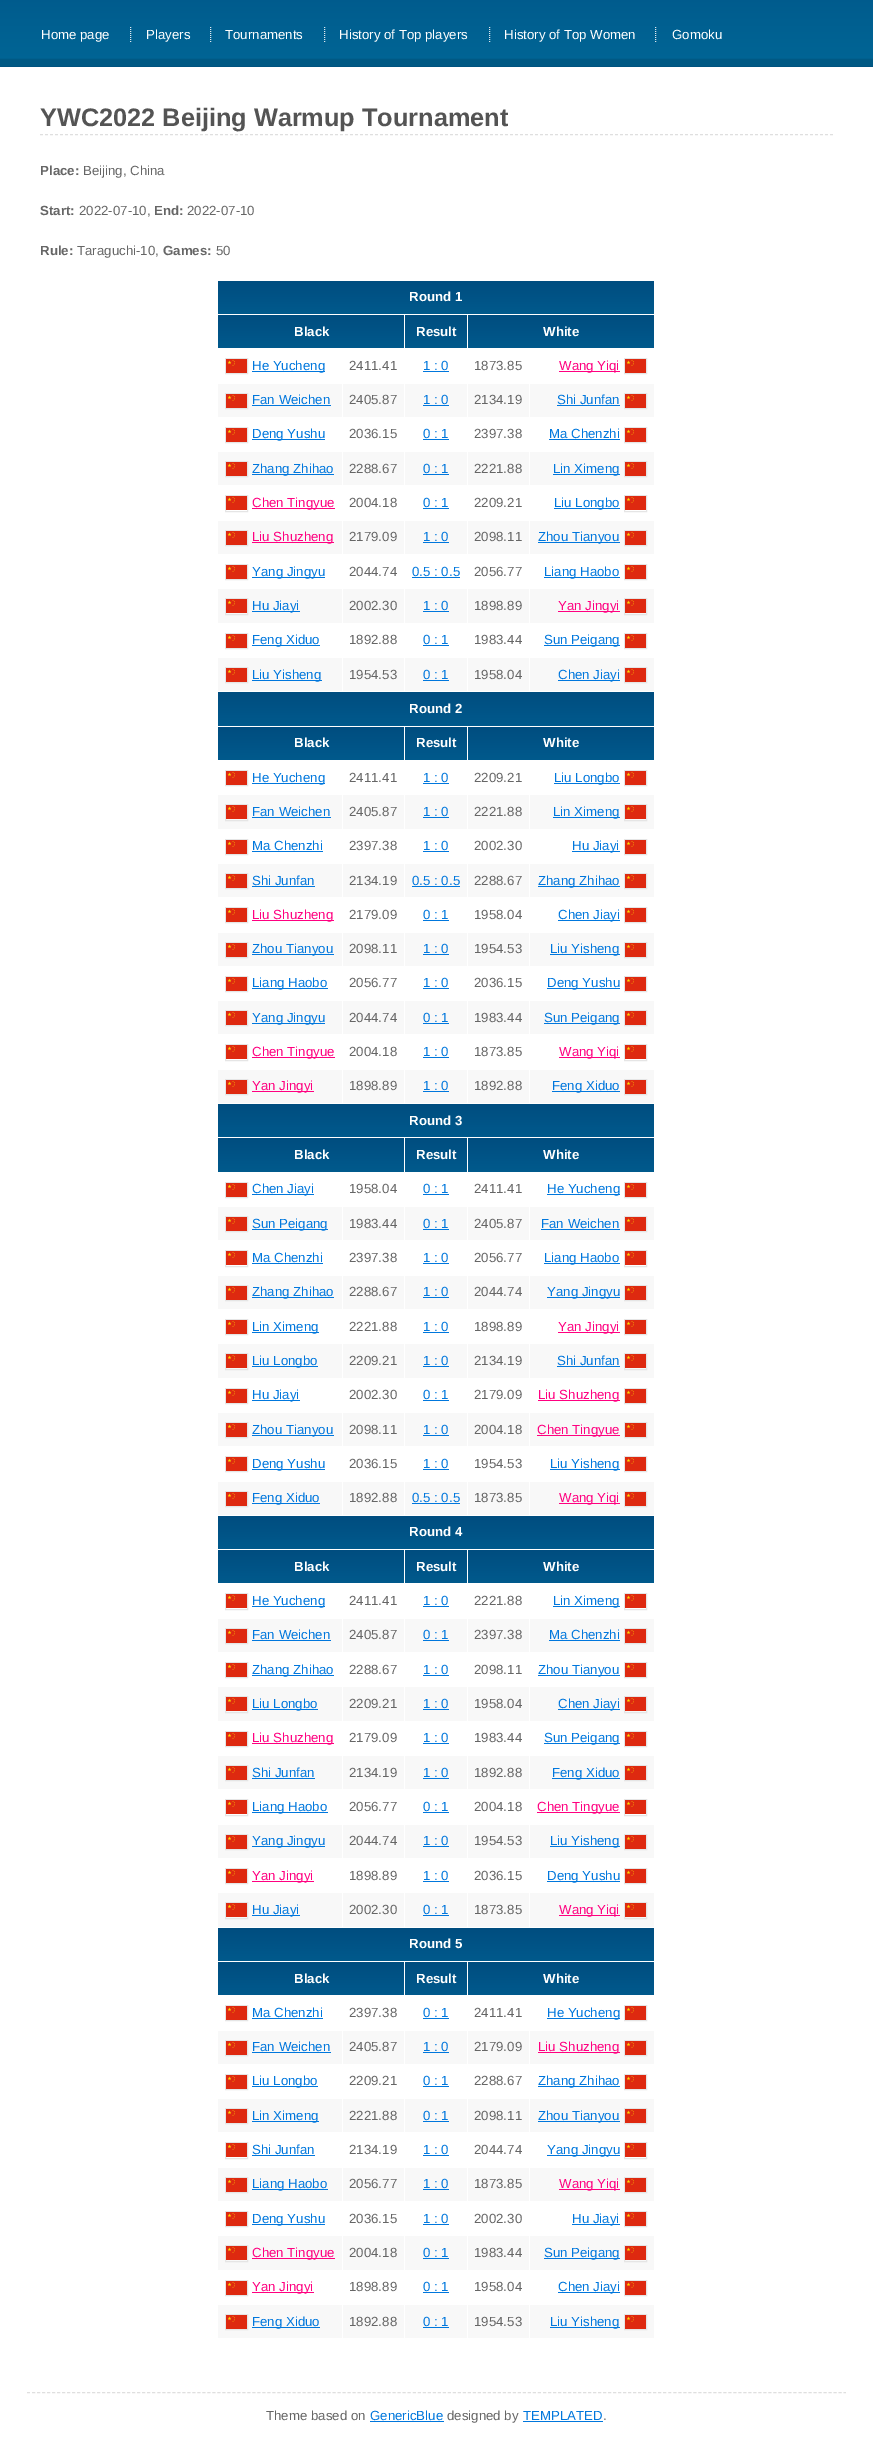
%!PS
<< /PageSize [873 2440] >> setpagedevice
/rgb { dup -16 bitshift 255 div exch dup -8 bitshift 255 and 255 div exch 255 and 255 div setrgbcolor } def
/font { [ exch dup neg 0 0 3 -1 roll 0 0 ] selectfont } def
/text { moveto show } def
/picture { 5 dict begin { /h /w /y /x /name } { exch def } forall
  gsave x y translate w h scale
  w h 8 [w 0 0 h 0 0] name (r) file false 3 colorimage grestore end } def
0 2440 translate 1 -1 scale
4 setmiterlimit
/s1 { /LiberationSans-Regular 13.25 font 16#FFFFFF rgb } def
/s2 { /LiberationSans-Bold 25.3 font 16#545454 rgb } def
/s3 { /LiberationSans-Bold 13.25 font 16#666666 rgb } def
/s4 { /LiberationSans-Regular 13.25 font 16#666666 rgb } def
/s5 { /LiberationSans-Bold 13.25 font 16#FFFFFF rgb } def
/s6 { /LiberationSans-Regular 13.25 font 16#0077DD rgb } def
/s7 { /LiberationSans-Regular 13.25 font 16#FF0080 rgb } def
16#FFFFFF rgb
0 0 873 2440 rectfill
(pic1.raw) 0 0 873 67 picture
s1
(Home page) 41 39 text
(Players) 146 39 text
16#E0E8EF rgb
[1 1] 0 setdash
130.5 27 moveto 130.5 42 lineto stroke
s1
(Tournaments) 225 39 text
16#E0E8EF rgb
210.5 27 moveto 210.5 42 lineto stroke
s1
(History of Top players) 339 39 text
16#E0E8EF rgb
324.5 27 moveto 324.5 42 lineto stroke
s1
(History of Top Women) 504 39 text
16#E0E8EF rgb
489.5 27 moveto 489.5 42 lineto stroke
s1
(Gomoku) 672 39 text
16#E0E8EF rgb
655.5 27 moveto 655.5 42 lineto stroke
16#DFDFDF rgb
[3 2] 0 setdash
40 134.5 moveto 833 134.5 lineto stroke
s2
(YWC2022 Beijing Warmup Tournament) 40 126 text
s3
(Place:) 40 175 text
s4
(Beijing, China) 83 175 text
s3
(Start:) 40 215 text
s4
(2022-07-10,) 79 215 text
s3
(End:) 154 215 text
s4
(2022-07-10) 187 215 text
s3
(Rule:) 40 255 text
s4
(Taraguchi-10,) 77 255 text
s3
(Games:) 163 255 text
s4
(50) 216 255 text
(pic2.raw) 218 281 436 33 picture
s5
(Round 1) 409 301 text
(pic3.raw) 218 315 186 33 picture
(Black) 294 336 text
(pic4.raw) 405 315 62 33 picture
(Result) 416 336 text
(pic3.raw) 468 315 186 33 picture
(White) 543 336 text
16#E5E5E5 rgb
[] 0 setdash
225.5 358.5 22 15 rectstroke
(pic5.raw) 226 359 21 14 picture
16#0077DD rgb
252 371 73 1 rectfill
s6
(He Yucheng) 252 370 text
s4
(2411.41) 349 370 text
s6
(1 : 0) 423 370 text
423 371 26 1 rectfill
s4
(1873.85) 474 370 text
16#E5E5E5 rgb
624.5 358.5 22 15 rectstroke
16#FF0080 rgb
559 371 61 1 rectfill
(Wang Yiqi) 559 370 text
(pic5.raw) 625 359 21 14 picture
16#F8F8F8 rgb
218 384 436 33 rectfill
16#FFFFFF rgb
342 383 1 35 rectfill
16#E5E5E5 rgb
225.5 393.5 22 15 rectstroke
(pic5.raw) 226 394 21 14 picture
s6
(Fan Weichen) 252 404 text
252 405 79 1 rectfill
16#FFFFFF rgb
404 383 1 35 rectfill
s4
(2405.87) 349 404 text
16#FFFFFF rgb
467 383 1 35 rectfill
s6
(1 : 0) 423 404 text
423 405 26 1 rectfill
16#FFFFFF rgb
529 383 1 35 rectfill
s4
(2134.19) 474 404 text
s6
(Shi Junfan) 557 404 text
557 405 63 1 rectfill
16#E5E5E5 rgb
624.5 393.5 22 15 rectstroke
(pic5.raw) 625 394 21 14 picture
225.5 427.5 22 15 rectstroke
(pic5.raw) 226 428 21 14 picture
16#0077DD rgb
252 439 73 1 rectfill
(Deng Yushu) 252 438 text
s4
(2036.15) 349 438 text
s6
(0 : 1) 423 438 text
423 439 26 1 rectfill
s4
(2397.38) 474 438 text
s6
(Ma Chenzhi) 549 438 text
549 439 71 1 rectfill
16#E5E5E5 rgb
624.5 427.5 22 15 rectstroke
(pic5.raw) 625 428 21 14 picture
16#F8F8F8 rgb
218 452 436 33 rectfill
16#FFFFFF rgb
342 451 1 35 rectfill
16#E5E5E5 rgb
225.5 461.5 22 15 rectstroke
(pic5.raw) 226 462 21 14 picture
16#0077DD rgb
252 474 82 1 rectfill
(Zhang Zhihao) 252 473 text
16#FFFFFF rgb
404 451 1 35 rectfill
s4
(2288.67) 349 473 text
16#FFFFFF rgb
467 451 1 35 rectfill
s6
(0 : 1) 423 473 text
423 474 26 1 rectfill
16#FFFFFF rgb
529 451 1 35 rectfill
s4
(2221.88) 474 473 text
16#E5E5E5 rgb
624.5 461.5 22 15 rectstroke
16#0077DD rgb
553 474 67 1 rectfill
(Lin Ximeng) 553 473 text
(pic5.raw) 625 462 21 14 picture
16#E5E5E5 rgb
225.5 495.5 22 16 rectstroke
(pic5.raw) 226 496 21 14 picture
16#FF0080 rgb
252 508 83 1 rectfill
(Chen Tingyue) 252 507 text
s4
(2004.18) 349 507 text
s6
(0 : 1) 423 507 text
423 508 26 1 rectfill
s4
(2209.21) 474 507 text
16#E5E5E5 rgb
624.5 495.5 22 16 rectstroke
16#0077DD rgb
554 508 66 1 rectfill
(Liu Longbo) 554 507 text
(pic5.raw) 625 496 21 14 picture
16#F8F8F8 rgb
218 521 436 33 rectfill
16#FFFFFF rgb
342 520 1 35 rectfill
16#E5E5E5 rgb
225.5 530.5 22 15 rectstroke
(pic5.raw) 226 531 21 14 picture
16#FF0080 rgb
252 542 82 1 rectfill
(Liu Shuzheng) 252 541 text
16#FFFFFF rgb
404 520 1 35 rectfill
s4
(2179.09) 349 541 text
16#FFFFFF rgb
467 520 1 35 rectfill
s6
(1 : 0) 423 541 text
423 542 26 1 rectfill
16#FFFFFF rgb
529 520 1 35 rectfill
s4
(2098.11) 474 541 text
16#0077DD rgb
538 542 82 1 rectfill
(Zhou Tianyou) 538 541 text
16#E5E5E5 rgb
624.5 530.5 22 15 rectstroke
(pic5.raw) 625 531 21 14 picture
225.5 564.5 22 15 rectstroke
(pic5.raw) 226 565 21 14 picture
16#0077DD rgb
252 577 73 1 rectfill
(Yang Jingyu) 252 576 text
s4
(2044.74) 349 576 text
s6
(0.5 : 0.5) 412 576 text
412 577 48 1 rectfill
s4
(2056.77) 474 576 text
16#E5E5E5 rgb
624.5 564.5 22 15 rectstroke
16#0077DD rgb
544 577 76 1 rectfill
(Liang Haobo) 544 576 text
(pic5.raw) 625 565 21 14 picture
16#F8F8F8 rgb
218 589 436 34 rectfill
16#FFFFFF rgb
342 588 1 36 rectfill
16#E5E5E5 rgb
225.5 598.5 22 16 rectstroke
(pic5.raw) 226 599 21 14 picture
16#0077DD rgb
252 611 48 1 rectfill
(Hu Jiayi) 252 610 text
16#FFFFFF rgb
404 588 1 36 rectfill
s4
(2002.30) 349 610 text
16#FFFFFF rgb
467 588 1 36 rectfill
s6
(1 : 0) 423 610 text
423 611 26 1 rectfill
16#FFFFFF rgb
529 588 1 36 rectfill
s4
(1898.89) 474 610 text
16#E5E5E5 rgb
624.5 598.5 22 16 rectstroke
16#FF0080 rgb
558 611 62 1 rectfill
(Yan Jingyi) 558 610 text
(pic5.raw) 625 599 21 14 picture
16#E5E5E5 rgb
225.5 633.5 22 15 rectstroke
(pic5.raw) 226 634 21 14 picture
16#0077DD rgb
252 645 68 1 rectfill
(Feng Xiduo) 252 644 text
s4
(1892.88) 349 644 text
s6
(0 : 1) 423 644 text
423 645 26 1 rectfill
s4
(1983.44) 474 644 text
16#0077DD rgb
544 645 76 1 rectfill
(Sun Peigang) 544 644 text
16#E5E5E5 rgb
624.5 633.5 22 15 rectstroke
(pic5.raw) 625 634 21 14 picture
16#F8F8F8 rgb
218 658 436 33 rectfill
16#FFFFFF rgb
342 657 1 35 rectfill
16#E5E5E5 rgb
225.5 667.5 22 15 rectstroke
(pic5.raw) 226 668 21 14 picture
16#0077DD rgb
252 680 70 1 rectfill
(Liu Yisheng) 252 679 text
16#FFFFFF rgb
404 657 1 35 rectfill
s4
(1954.53) 349 679 text
16#FFFFFF rgb
467 657 1 35 rectfill
s6
(0 : 1) 423 679 text
423 680 26 1 rectfill
16#FFFFFF rgb
529 657 1 35 rectfill
s4
(1958.04) 474 679 text
16#E5E5E5 rgb
624.5 667.5 22 15 rectstroke
16#0077DD rgb
558 680 62 1 rectfill
(Chen Jiayi) 558 679 text
(pic5.raw) 625 668 21 14 picture
(pic6.raw) 218 692 436 34 picture
s5
(Round 2) 409 713 text
(pic3.raw) 218 727 186 33 picture
(Black) 294 747 text
(pic4.raw) 405 727 62 33 picture
(Result) 416 747 text
(pic3.raw) 468 727 186 33 picture
(White) 543 747 text
16#E5E5E5 rgb
225.5 770.5 22 15 rectstroke
(pic5.raw) 226 771 21 14 picture
16#0077DD rgb
252 783 73 1 rectfill
s6
(He Yucheng) 252 782 text
s4
(2411.41) 349 782 text
s6
(1 : 0) 423 782 text
423 783 26 1 rectfill
s4
(2209.21) 474 782 text
16#E5E5E5 rgb
624.5 770.5 22 15 rectstroke
16#0077DD rgb
554 783 66 1 rectfill
(Liu Longbo) 554 782 text
(pic5.raw) 625 771 21 14 picture
16#F8F8F8 rgb
218 795 436 34 rectfill
16#FFFFFF rgb
342 794 1 36 rectfill
16#E5E5E5 rgb
225.5 804.5 22 16 rectstroke
(pic5.raw) 226 805 21 14 picture
s6
(Fan Weichen) 252 816 text
252 817 79 1 rectfill
16#FFFFFF rgb
404 794 1 36 rectfill
s4
(2405.87) 349 816 text
16#FFFFFF rgb
467 794 1 36 rectfill
s6
(1 : 0) 423 816 text
423 817 26 1 rectfill
16#FFFFFF rgb
529 794 1 36 rectfill
s4
(2221.88) 474 816 text
16#E5E5E5 rgb
624.5 804.5 22 16 rectstroke
16#0077DD rgb
553 817 67 1 rectfill
(Lin Ximeng) 553 816 text
(pic5.raw) 625 805 21 14 picture
16#E5E5E5 rgb
225.5 839.5 22 15 rectstroke
(pic5.raw) 226 840 21 14 picture
s6
(Ma Chenzhi) 252 850 text
252 851 71 1 rectfill
s4
(2397.38) 349 850 text
s6
(1 : 0) 423 850 text
423 851 26 1 rectfill
s4
(2002.30) 474 850 text
16#0077DD rgb
572 851 48 1 rectfill
(Hu Jiayi) 572 850 text
16#E5E5E5 rgb
624.5 839.5 22 15 rectstroke
(pic5.raw) 625 840 21 14 picture
16#F8F8F8 rgb
218 864 436 33 rectfill
16#FFFFFF rgb
342 863 1 35 rectfill
16#E5E5E5 rgb
225.5 873.5 22 15 rectstroke
(pic5.raw) 226 874 21 14 picture
s6
(Shi Junfan) 252 885 text
252 886 63 1 rectfill
16#FFFFFF rgb
404 863 1 35 rectfill
s4
(2134.19) 349 885 text
16#FFFFFF rgb
467 863 1 35 rectfill
s6
(0.5 : 0.5) 412 885 text
412 886 48 1 rectfill
16#FFFFFF rgb
529 863 1 35 rectfill
s4
(2288.67) 474 885 text
16#E5E5E5 rgb
624.5 873.5 22 15 rectstroke
16#0077DD rgb
538 886 82 1 rectfill
(Zhang Zhihao) 538 885 text
(pic5.raw) 625 874 21 14 picture
16#E5E5E5 rgb
225.5 907.5 22 15 rectstroke
(pic5.raw) 226 908 21 14 picture
16#FF0080 rgb
252 920 82 1 rectfill
(Liu Shuzheng) 252 919 text
s4
(2179.09) 349 919 text
s6
(0 : 1) 423 919 text
423 920 26 1 rectfill
s4
(1958.04) 474 919 text
16#E5E5E5 rgb
624.5 907.5 22 15 rectstroke
16#0077DD rgb
558 920 62 1 rectfill
(Chen Jiayi) 558 919 text
(pic5.raw) 625 908 21 14 picture
16#F8F8F8 rgb
218 933 436 33 rectfill
16#FFFFFF rgb
342 932 1 35 rectfill
16#E5E5E5 rgb
225.5 942.5 22 15 rectstroke
(pic5.raw) 226 943 21 14 picture
16#0077DD rgb
252 954 82 1 rectfill
(Zhou Tianyou) 252 953 text
16#FFFFFF rgb
404 932 1 35 rectfill
s4
(2098.11) 349 953 text
16#FFFFFF rgb
467 932 1 35 rectfill
s6
(1 : 0) 423 953 text
423 954 26 1 rectfill
16#FFFFFF rgb
529 932 1 35 rectfill
s4
(1954.53) 474 953 text
16#0077DD rgb
550 954 70 1 rectfill
(Liu Yisheng) 550 953 text
16#E5E5E5 rgb
624.5 942.5 22 15 rectstroke
(pic5.raw) 625 943 21 14 picture
225.5 976.5 22 15 rectstroke
(pic5.raw) 226 977 21 14 picture
16#0077DD rgb
252 988 76 1 rectfill
(Liang Haobo) 252 987 text
s4
(2056.77) 349 987 text
s6
(1 : 0) 423 987 text
423 988 26 1 rectfill
s4
(2036.15) 474 987 text
16#0077DD rgb
547 988 73 1 rectfill
(Deng Yushu) 547 987 text
16#E5E5E5 rgb
624.5 976.5 22 15 rectstroke
(pic5.raw) 625 977 21 14 picture
16#F8F8F8 rgb
218 1001 436 33 rectfill
16#FFFFFF rgb
342 1000 1 35 rectfill
16#E5E5E5 rgb
225.5 1010.5 22 15 rectstroke
(pic5.raw) 226 1011 21 14 picture
16#0077DD rgb
252 1023 73 1 rectfill
(Yang Jingyu) 252 1022 text
16#FFFFFF rgb
404 1000 1 35 rectfill
s4
(2044.74) 349 1022 text
16#FFFFFF rgb
467 1000 1 35 rectfill
s6
(0 : 1) 423 1022 text
423 1023 26 1 rectfill
16#FFFFFF rgb
529 1000 1 35 rectfill
s4
(1983.44) 474 1022 text
16#E5E5E5 rgb
624.5 1010.5 22 15 rectstroke
16#0077DD rgb
544 1023 76 1 rectfill
(Sun Peigang) 544 1022 text
(pic5.raw) 625 1011 21 14 picture
16#E5E5E5 rgb
225.5 1044.5 22 16 rectstroke
(pic5.raw) 226 1045 21 14 picture
16#FF0080 rgb
252 1057 83 1 rectfill
(Chen Tingyue) 252 1056 text
s4
(2004.18) 349 1056 text
s6
(1 : 0) 423 1056 text
423 1057 26 1 rectfill
s4
(1873.85) 474 1056 text
16#E5E5E5 rgb
624.5 1044.5 22 16 rectstroke
16#FF0080 rgb
559 1057 61 1 rectfill
(Wang Yiqi) 559 1056 text
(pic5.raw) 625 1045 21 14 picture
16#F8F8F8 rgb
218 1070 436 33 rectfill
16#FFFFFF rgb
342 1069 1 35 rectfill
16#E5E5E5 rgb
225.5 1079.5 22 15 rectstroke
(pic5.raw) 226 1080 21 14 picture
16#FF0080 rgb
252 1091 62 1 rectfill
(Yan Jingyi) 252 1090 text
16#FFFFFF rgb
404 1069 1 35 rectfill
s4
(1898.89) 349 1090 text
16#FFFFFF rgb
467 1069 1 35 rectfill
s6
(1 : 0) 423 1090 text
423 1091 26 1 rectfill
16#FFFFFF rgb
529 1069 1 35 rectfill
s4
(1892.88) 474 1090 text
16#0077DD rgb
552 1091 68 1 rectfill
(Feng Xiduo) 552 1090 text
16#E5E5E5 rgb
624.5 1079.5 22 15 rectstroke
(pic5.raw) 625 1080 21 14 picture
(pic2.raw) 218 1104 436 33 picture
s5
(Round 3) 409 1125 text
(pic7.raw) 218 1138 186 34 picture
(Black) 294 1159 text
(pic8.raw) 405 1138 62 34 picture
(Result) 416 1159 text
(pic7.raw) 468 1138 186 34 picture
(White) 543 1159 text
16#E5E5E5 rgb
225.5 1182.5 22 15 rectstroke
(pic5.raw) 226 1183 21 14 picture
16#0077DD rgb
252 1194 62 1 rectfill
s6
(Chen Jiayi) 252 1193 text
s4
(1958.04) 349 1193 text
s6
(0 : 1) 423 1193 text
423 1194 26 1 rectfill
s4
(2411.41) 474 1193 text
16#0077DD rgb
547 1194 73 1 rectfill
(He Yucheng) 547 1193 text
16#E5E5E5 rgb
624.5 1182.5 22 15 rectstroke
(pic5.raw) 625 1183 21 14 picture
16#F8F8F8 rgb
218 1207 436 33 rectfill
16#FFFFFF rgb
342 1206 1 35 rectfill
16#E5E5E5 rgb
225.5 1216.5 22 15 rectstroke
(pic5.raw) 226 1217 21 14 picture
16#0077DD rgb
252 1229 76 1 rectfill
(Sun Peigang) 252 1228 text
16#FFFFFF rgb
404 1206 1 35 rectfill
s4
(1983.44) 349 1228 text
16#FFFFFF rgb
467 1206 1 35 rectfill
s6
(0 : 1) 423 1228 text
423 1229 26 1 rectfill
16#FFFFFF rgb
529 1206 1 35 rectfill
s4
(2405.87) 474 1228 text
16#E5E5E5 rgb
624.5 1216.5 22 15 rectstroke
s6
(Fan Weichen) 541 1228 text
541 1229 79 1 rectfill
(pic5.raw) 625 1217 21 14 picture
16#E5E5E5 rgb
225.5 1250.5 22 16 rectstroke
(pic5.raw) 226 1251 21 14 picture
s6
(Ma Chenzhi) 252 1262 text
252 1263 71 1 rectfill
s4
(2397.38) 349 1262 text
s6
(1 : 0) 423 1262 text
423 1263 26 1 rectfill
s4
(2056.77) 474 1262 text
16#E5E5E5 rgb
624.5 1250.5 22 16 rectstroke
16#0077DD rgb
544 1263 76 1 rectfill
(Liang Haobo) 544 1262 text
(pic5.raw) 625 1251 21 14 picture
16#F8F8F8 rgb
218 1276 436 33 rectfill
16#FFFFFF rgb
342 1275 1 35 rectfill
16#E5E5E5 rgb
225.5 1285.5 22 15 rectstroke
(pic5.raw) 226 1286 21 14 picture
16#0077DD rgb
252 1297 82 1 rectfill
(Zhang Zhihao) 252 1296 text
16#FFFFFF rgb
404 1275 1 35 rectfill
s4
(2288.67) 349 1296 text
16#FFFFFF rgb
467 1275 1 35 rectfill
s6
(1 : 0) 423 1296 text
423 1297 26 1 rectfill
16#FFFFFF rgb
529 1275 1 35 rectfill
s4
(2044.74) 474 1296 text
16#0077DD rgb
547 1297 73 1 rectfill
(Yang Jingyu) 547 1296 text
16#E5E5E5 rgb
624.5 1285.5 22 15 rectstroke
(pic5.raw) 625 1286 21 14 picture
225.5 1319.5 22 15 rectstroke
(pic5.raw) 226 1320 21 14 picture
16#0077DD rgb
252 1332 67 1 rectfill
(Lin Ximeng) 252 1331 text
s4
(2221.88) 349 1331 text
s6
(1 : 0) 423 1331 text
423 1332 26 1 rectfill
s4
(1898.89) 474 1331 text
16#E5E5E5 rgb
624.5 1319.5 22 15 rectstroke
16#FF0080 rgb
558 1332 62 1 rectfill
(Yan Jingyi) 558 1331 text
(pic5.raw) 625 1320 21 14 picture
16#F8F8F8 rgb
218 1344 436 34 rectfill
16#FFFFFF rgb
342 1343 1 36 rectfill
16#E5E5E5 rgb
225.5 1353.5 22 16 rectstroke
(pic5.raw) 226 1354 21 14 picture
16#0077DD rgb
252 1366 66 1 rectfill
(Liu Longbo) 252 1365 text
16#FFFFFF rgb
404 1343 1 36 rectfill
s4
(2209.21) 349 1365 text
16#FFFFFF rgb
467 1343 1 36 rectfill
s6
(1 : 0) 423 1365 text
423 1366 26 1 rectfill
16#FFFFFF rgb
529 1343 1 36 rectfill
s4
(2134.19) 474 1365 text
16#E5E5E5 rgb
624.5 1353.5 22 16 rectstroke
s6
(Shi Junfan) 557 1365 text
557 1366 63 1 rectfill
(pic5.raw) 625 1354 21 14 picture
16#E5E5E5 rgb
225.5 1388.5 22 15 rectstroke
(pic5.raw) 226 1389 21 14 picture
16#0077DD rgb
252 1400 48 1 rectfill
(Hu Jiayi) 252 1399 text
s4
(2002.30) 349 1399 text
s6
(0 : 1) 423 1399 text
423 1400 26 1 rectfill
s4
(2179.09) 474 1399 text
16#FF0080 rgb
538 1400 82 1 rectfill
(Liu Shuzheng) 538 1399 text
16#E5E5E5 rgb
624.5 1388.5 22 15 rectstroke
(pic5.raw) 625 1389 21 14 picture
16#F8F8F8 rgb
218 1413 436 33 rectfill
16#FFFFFF rgb
342 1412 1 35 rectfill
16#E5E5E5 rgb
225.5 1422.5 22 15 rectstroke
(pic5.raw) 226 1423 21 14 picture
16#0077DD rgb
252 1435 82 1 rectfill
(Zhou Tianyou) 252 1434 text
16#FFFFFF rgb
404 1412 1 35 rectfill
s4
(2098.11) 349 1434 text
16#FFFFFF rgb
467 1412 1 35 rectfill
s6
(1 : 0) 423 1434 text
423 1435 26 1 rectfill
16#FFFFFF rgb
529 1412 1 35 rectfill
s4
(2004.18) 474 1434 text
16#E5E5E5 rgb
624.5 1422.5 22 15 rectstroke
16#FF0080 rgb
537 1435 83 1 rectfill
(Chen Tingyue) 537 1434 text
(pic5.raw) 625 1423 21 14 picture
16#E5E5E5 rgb
225.5 1456.5 22 15 rectstroke
(pic5.raw) 226 1457 21 14 picture
16#0077DD rgb
252 1469 73 1 rectfill
(Deng Yushu) 252 1468 text
s4
(2036.15) 349 1468 text
s6
(1 : 0) 423 1468 text
423 1469 26 1 rectfill
s4
(1954.53) 474 1468 text
16#E5E5E5 rgb
624.5 1456.5 22 15 rectstroke
16#0077DD rgb
550 1469 70 1 rectfill
(Liu Yisheng) 550 1468 text
(pic5.raw) 625 1457 21 14 picture
16#F8F8F8 rgb
218 1482 436 33 rectfill
16#FFFFFF rgb
342 1481 1 35 rectfill
16#E5E5E5 rgb
225.5 1491.5 22 15 rectstroke
(pic5.raw) 226 1492 21 14 picture
16#0077DD rgb
252 1503 68 1 rectfill
(Feng Xiduo) 252 1502 text
16#FFFFFF rgb
404 1481 1 35 rectfill
s4
(1892.88) 349 1502 text
16#FFFFFF rgb
467 1481 1 35 rectfill
s6
(0.5 : 0.5) 412 1502 text
412 1503 48 1 rectfill
16#FFFFFF rgb
529 1481 1 35 rectfill
s4
(1873.85) 474 1502 text
16#FF0080 rgb
559 1503 61 1 rectfill
(Wang Yiqi) 559 1502 text
16#E5E5E5 rgb
624.5 1491.5 22 15 rectstroke
(pic5.raw) 625 1492 21 14 picture
(pic2.raw) 218 1516 436 33 picture
s5
(Round 4) 409 1536 text
(pic3.raw) 218 1550 186 33 picture
(Black) 294 1571 text
(pic4.raw) 405 1550 62 33 picture
(Result) 416 1571 text
(pic3.raw) 468 1550 186 33 picture
(White) 543 1571 text
16#E5E5E5 rgb
225.5 1593.5 22 16 rectstroke
(pic5.raw) 226 1594 21 14 picture
16#0077DD rgb
252 1606 73 1 rectfill
s6
(He Yucheng) 252 1605 text
s4
(2411.41) 349 1605 text
s6
(1 : 0) 423 1605 text
423 1606 26 1 rectfill
s4
(2221.88) 474 1605 text
16#E5E5E5 rgb
624.5 1593.5 22 16 rectstroke
16#0077DD rgb
553 1606 67 1 rectfill
(Lin Ximeng) 553 1605 text
(pic5.raw) 625 1594 21 14 picture
16#F8F8F8 rgb
218 1619 436 33 rectfill
16#FFFFFF rgb
342 1618 1 35 rectfill
16#E5E5E5 rgb
225.5 1628.5 22 15 rectstroke
(pic5.raw) 226 1629 21 14 picture
s6
(Fan Weichen) 252 1639 text
252 1640 79 1 rectfill
16#FFFFFF rgb
404 1618 1 35 rectfill
s4
(2405.87) 349 1639 text
16#FFFFFF rgb
467 1618 1 35 rectfill
s6
(0 : 1) 423 1639 text
423 1640 26 1 rectfill
16#FFFFFF rgb
529 1618 1 35 rectfill
s4
(2397.38) 474 1639 text
s6
(Ma Chenzhi) 549 1639 text
549 1640 71 1 rectfill
16#E5E5E5 rgb
624.5 1628.5 22 15 rectstroke
(pic5.raw) 625 1629 21 14 picture
225.5 1662.5 22 15 rectstroke
(pic5.raw) 226 1663 21 14 picture
16#0077DD rgb
252 1675 82 1 rectfill
(Zhang Zhihao) 252 1674 text
s4
(2288.67) 349 1674 text
s6
(1 : 0) 423 1674 text
423 1675 26 1 rectfill
s4
(2098.11) 474 1674 text
16#E5E5E5 rgb
624.5 1662.5 22 15 rectstroke
16#0077DD rgb
538 1675 82 1 rectfill
(Zhou Tianyou) 538 1674 text
(pic5.raw) 625 1663 21 14 picture
16#F8F8F8 rgb
218 1687 436 34 rectfill
16#FFFFFF rgb
342 1686 1 36 rectfill
16#E5E5E5 rgb
225.5 1696.5 22 16 rectstroke
(pic5.raw) 226 1697 21 14 picture
16#0077DD rgb
252 1709 66 1 rectfill
(Liu Longbo) 252 1708 text
16#FFFFFF rgb
404 1686 1 36 rectfill
s4
(2209.21) 349 1708 text
16#FFFFFF rgb
467 1686 1 36 rectfill
s6
(1 : 0) 423 1708 text
423 1709 26 1 rectfill
16#FFFFFF rgb
529 1686 1 36 rectfill
s4
(1958.04) 474 1708 text
16#E5E5E5 rgb
624.5 1696.5 22 16 rectstroke
16#0077DD rgb
558 1709 62 1 rectfill
(Chen Jiayi) 558 1708 text
(pic5.raw) 625 1697 21 14 picture
16#E5E5E5 rgb
225.5 1731.5 22 15 rectstroke
(pic5.raw) 226 1732 21 14 picture
16#FF0080 rgb
252 1743 82 1 rectfill
(Liu Shuzheng) 252 1742 text
s4
(2179.09) 349 1742 text
s6
(1 : 0) 423 1742 text
423 1743 26 1 rectfill
s4
(1983.44) 474 1742 text
16#0077DD rgb
544 1743 76 1 rectfill
(Sun Peigang) 544 1742 text
16#E5E5E5 rgb
624.5 1731.5 22 15 rectstroke
(pic5.raw) 625 1732 21 14 picture
16#F8F8F8 rgb
218 1756 436 33 rectfill
16#FFFFFF rgb
342 1755 1 35 rectfill
16#E5E5E5 rgb
225.5 1765.5 22 15 rectstroke
(pic5.raw) 226 1766 21 14 picture
s6
(Shi Junfan) 252 1777 text
252 1778 63 1 rectfill
16#FFFFFF rgb
404 1755 1 35 rectfill
s4
(2134.19) 349 1777 text
16#FFFFFF rgb
467 1755 1 35 rectfill
s6
(1 : 0) 423 1777 text
423 1778 26 1 rectfill
16#FFFFFF rgb
529 1755 1 35 rectfill
s4
(1892.88) 474 1777 text
16#E5E5E5 rgb
624.5 1765.5 22 15 rectstroke
16#0077DD rgb
552 1778 68 1 rectfill
(Feng Xiduo) 552 1777 text
(pic5.raw) 625 1766 21 14 picture
16#E5E5E5 rgb
225.5 1799.5 22 16 rectstroke
(pic5.raw) 226 1800 21 14 picture
16#0077DD rgb
252 1812 76 1 rectfill
(Liang Haobo) 252 1811 text
s4
(2056.77) 349 1811 text
s6
(0 : 1) 423 1811 text
423 1812 26 1 rectfill
s4
(2004.18) 474 1811 text
16#E5E5E5 rgb
624.5 1799.5 22 16 rectstroke
16#FF0080 rgb
537 1812 83 1 rectfill
(Chen Tingyue) 537 1811 text
(pic5.raw) 625 1800 21 14 picture
16#F8F8F8 rgb
218 1825 436 33 rectfill
16#FFFFFF rgb
342 1824 1 35 rectfill
16#E5E5E5 rgb
225.5 1834.5 22 15 rectstroke
(pic5.raw) 226 1835 21 14 picture
16#0077DD rgb
252 1846 73 1 rectfill
(Yang Jingyu) 252 1845 text
16#FFFFFF rgb
404 1824 1 35 rectfill
s4
(2044.74) 349 1845 text
16#FFFFFF rgb
467 1824 1 35 rectfill
s6
(1 : 0) 423 1845 text
423 1846 26 1 rectfill
16#FFFFFF rgb
529 1824 1 35 rectfill
s4
(1954.53) 474 1845 text
16#0077DD rgb
550 1846 70 1 rectfill
(Liu Yisheng) 550 1845 text
16#E5E5E5 rgb
624.5 1834.5 22 15 rectstroke
(pic5.raw) 625 1835 21 14 picture
225.5 1868.5 22 15 rectstroke
(pic5.raw) 226 1869 21 14 picture
16#FF0080 rgb
252 1881 62 1 rectfill
(Yan Jingyi) 252 1880 text
s4
(1898.89) 349 1880 text
s6
(1 : 0) 423 1880 text
423 1881 26 1 rectfill
s4
(2036.15) 474 1880 text
16#E5E5E5 rgb
624.5 1868.5 22 15 rectstroke
16#0077DD rgb
547 1881 73 1 rectfill
(Deng Yushu) 547 1880 text
(pic5.raw) 625 1869 21 14 picture
16#F8F8F8 rgb
218 1893 436 34 rectfill
16#FFFFFF rgb
342 1892 1 36 rectfill
16#E5E5E5 rgb
225.5 1902.5 22 16 rectstroke
(pic5.raw) 226 1903 21 14 picture
16#0077DD rgb
252 1915 48 1 rectfill
(Hu Jiayi) 252 1914 text
16#FFFFFF rgb
404 1892 1 36 rectfill
s4
(2002.30) 349 1914 text
16#FFFFFF rgb
467 1892 1 36 rectfill
s6
(0 : 1) 423 1914 text
423 1915 26 1 rectfill
16#FFFFFF rgb
529 1892 1 36 rectfill
s4
(1873.85) 474 1914 text
16#E5E5E5 rgb
624.5 1902.5 22 16 rectstroke
16#FF0080 rgb
559 1915 61 1 rectfill
(Wang Yiqi) 559 1914 text
(pic5.raw) 625 1903 21 14 picture
(pic2.raw) 218 1928 436 33 picture
s5
(Round 5) 409 1948 text
(pic3.raw) 218 1962 186 33 picture
(Black) 294 1983 text
(pic4.raw) 405 1962 62 33 picture
(Result) 416 1983 text
(pic3.raw) 468 1962 186 33 picture
(White) 543 1983 text
16#E5E5E5 rgb
225.5 2005.5 22 15 rectstroke
(pic5.raw) 226 2006 21 14 picture
s6
(Ma Chenzhi) 252 2017 text
252 2018 71 1 rectfill
s4
(2397.38) 349 2017 text
s6
(0 : 1) 423 2017 text
423 2018 26 1 rectfill
s4
(2411.41) 474 2017 text
16#E5E5E5 rgb
624.5 2005.5 22 15 rectstroke
16#0077DD rgb
547 2018 73 1 rectfill
(He Yucheng) 547 2017 text
(pic5.raw) 625 2006 21 14 picture
16#F8F8F8 rgb
218 2031 436 33 rectfill
16#FFFFFF rgb
342 2030 1 35 rectfill
16#E5E5E5 rgb
225.5 2040.5 22 15 rectstroke
(pic5.raw) 226 2041 21 14 picture
s6
(Fan Weichen) 252 2051 text
252 2052 79 1 rectfill
16#FFFFFF rgb
404 2030 1 35 rectfill
s4
(2405.87) 349 2051 text
16#FFFFFF rgb
467 2030 1 35 rectfill
s6
(1 : 0) 423 2051 text
423 2052 26 1 rectfill
16#FFFFFF rgb
529 2030 1 35 rectfill
s4
(2179.09) 474 2051 text
16#FF0080 rgb
538 2052 82 1 rectfill
(Liu Shuzheng) 538 2051 text
16#E5E5E5 rgb
624.5 2040.5 22 15 rectstroke
(pic5.raw) 625 2041 21 14 picture
225.5 2074.5 22 15 rectstroke
(pic5.raw) 226 2075 21 14 picture
16#0077DD rgb
252 2086 66 1 rectfill
(Liu Longbo) 252 2085 text
s4
(2209.21) 349 2085 text
s6
(0 : 1) 423 2085 text
423 2086 26 1 rectfill
s4
(2288.67) 474 2085 text
16#0077DD rgb
538 2086 82 1 rectfill
(Zhang Zhihao) 538 2085 text
16#E5E5E5 rgb
624.5 2074.5 22 15 rectstroke
(pic5.raw) 625 2075 21 14 picture
16#F8F8F8 rgb
218 2099 436 33 rectfill
16#FFFFFF rgb
342 2098 1 35 rectfill
16#E5E5E5 rgb
225.5 2108.5 22 15 rectstroke
(pic5.raw) 226 2109 21 14 picture
16#0077DD rgb
252 2121 67 1 rectfill
(Lin Ximeng) 252 2120 text
16#FFFFFF rgb
404 2098 1 35 rectfill
s4
(2221.88) 349 2120 text
16#FFFFFF rgb
467 2098 1 35 rectfill
s6
(0 : 1) 423 2120 text
423 2121 26 1 rectfill
16#FFFFFF rgb
529 2098 1 35 rectfill
s4
(2098.11) 474 2120 text
16#E5E5E5 rgb
624.5 2108.5 22 15 rectstroke
16#0077DD rgb
538 2121 82 1 rectfill
(Zhou Tianyou) 538 2120 text
(pic5.raw) 625 2109 21 14 picture
16#E5E5E5 rgb
225.5 2142.5 22 16 rectstroke
(pic5.raw) 226 2143 21 14 picture
s6
(Shi Junfan) 252 2154 text
252 2155 63 1 rectfill
s4
(2134.19) 349 2154 text
s6
(1 : 0) 423 2154 text
423 2155 26 1 rectfill
s4
(2044.74) 474 2154 text
16#E5E5E5 rgb
624.5 2142.5 22 16 rectstroke
16#0077DD rgb
547 2155 73 1 rectfill
(Yang Jingyu) 547 2154 text
(pic5.raw) 625 2143 21 14 picture
16#F8F8F8 rgb
218 2168 436 33 rectfill
16#FFFFFF rgb
342 2167 1 35 rectfill
16#E5E5E5 rgb
225.5 2177.5 22 15 rectstroke
(pic5.raw) 226 2178 21 14 picture
16#0077DD rgb
252 2189 76 1 rectfill
(Liang Haobo) 252 2188 text
16#FFFFFF rgb
404 2167 1 35 rectfill
s4
(2056.77) 349 2188 text
16#FFFFFF rgb
467 2167 1 35 rectfill
s6
(1 : 0) 423 2188 text
423 2189 26 1 rectfill
16#FFFFFF rgb
529 2167 1 35 rectfill
s4
(1873.85) 474 2188 text
16#FF0080 rgb
559 2189 61 1 rectfill
(Wang Yiqi) 559 2188 text
16#E5E5E5 rgb
624.5 2177.5 22 15 rectstroke
(pic5.raw) 625 2178 21 14 picture
225.5 2211.5 22 15 rectstroke
(pic5.raw) 226 2212 21 14 picture
16#0077DD rgb
252 2224 73 1 rectfill
(Deng Yushu) 252 2223 text
s4
(2036.15) 349 2223 text
s6
(1 : 0) 423 2223 text
423 2224 26 1 rectfill
s4
(2002.30) 474 2223 text
16#E5E5E5 rgb
624.5 2211.5 22 15 rectstroke
16#0077DD rgb
572 2224 48 1 rectfill
(Hu Jiayi) 572 2223 text
(pic5.raw) 625 2212 21 14 picture
16#F8F8F8 rgb
218 2236 436 34 rectfill
16#FFFFFF rgb
342 2235 1 36 rectfill
16#E5E5E5 rgb
225.5 2245.5 22 16 rectstroke
(pic5.raw) 226 2246 21 14 picture
16#FF0080 rgb
252 2258 83 1 rectfill
(Chen Tingyue) 252 2257 text
16#FFFFFF rgb
404 2235 1 36 rectfill
s4
(2004.18) 349 2257 text
16#FFFFFF rgb
467 2235 1 36 rectfill
s6
(0 : 1) 423 2257 text
423 2258 26 1 rectfill
16#FFFFFF rgb
529 2235 1 36 rectfill
s4
(1983.44) 474 2257 text
16#E5E5E5 rgb
624.5 2245.5 22 16 rectstroke
16#0077DD rgb
544 2258 76 1 rectfill
(Sun Peigang) 544 2257 text
(pic5.raw) 625 2246 21 14 picture
16#E5E5E5 rgb
225.5 2280.5 22 15 rectstroke
(pic5.raw) 226 2281 21 14 picture
16#FF0080 rgb
252 2292 62 1 rectfill
(Yan Jingyi) 252 2291 text
s4
(1898.89) 349 2291 text
s6
(0 : 1) 423 2291 text
423 2292 26 1 rectfill
s4
(1958.04) 474 2291 text
16#0077DD rgb
558 2292 62 1 rectfill
(Chen Jiayi) 558 2291 text
16#E5E5E5 rgb
624.5 2280.5 22 15 rectstroke
(pic5.raw) 625 2281 21 14 picture
16#F8F8F8 rgb
218 2305 436 33 rectfill
16#FFFFFF rgb
342 2304 1 35 rectfill
16#E5E5E5 rgb
225.5 2314.5 22 15 rectstroke
(pic5.raw) 226 2315 21 14 picture
16#0077DD rgb
252 2327 68 1 rectfill
(Feng Xiduo) 252 2326 text
16#FFFFFF rgb
404 2304 1 35 rectfill
s4
(1892.88) 349 2326 text
16#FFFFFF rgb
467 2304 1 35 rectfill
s6
(0 : 1) 423 2326 text
423 2327 26 1 rectfill
16#FFFFFF rgb
529 2304 1 35 rectfill
s4
(1954.53) 474 2326 text
16#E5E5E5 rgb
624.5 2314.5 22 15 rectstroke
16#0077DD rgb
550 2327 70 1 rectfill
(Liu Yisheng) 550 2326 text
(pic5.raw) 625 2315 21 14 picture
16#DFDFDF rgb
[3 2.01] 0 setdash
27 2392.5 moveto 846 2392.5 lineto stroke
s4
(Theme based on) 266 2420 text
s6
(GenericBlue) 370 2420 text
370 2421 74 1 rectfill
s4
(designed by) 447 2420 text
s6
(TEMPLATED) 523 2420 text
523 2421 80 1 rectfill
s4
(.) 603 2420 text
showpage
